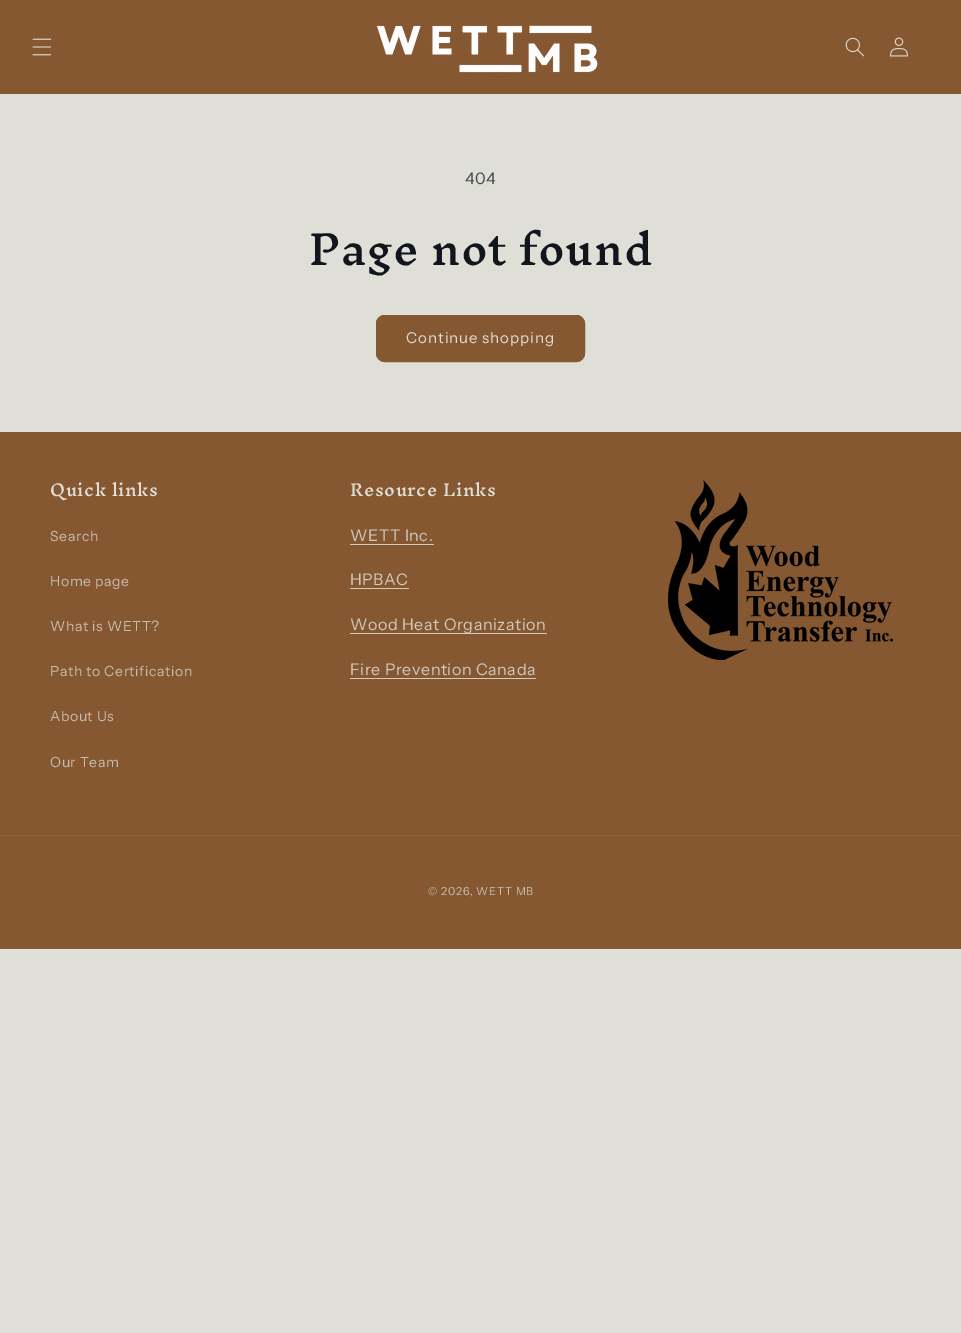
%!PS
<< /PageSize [961 1333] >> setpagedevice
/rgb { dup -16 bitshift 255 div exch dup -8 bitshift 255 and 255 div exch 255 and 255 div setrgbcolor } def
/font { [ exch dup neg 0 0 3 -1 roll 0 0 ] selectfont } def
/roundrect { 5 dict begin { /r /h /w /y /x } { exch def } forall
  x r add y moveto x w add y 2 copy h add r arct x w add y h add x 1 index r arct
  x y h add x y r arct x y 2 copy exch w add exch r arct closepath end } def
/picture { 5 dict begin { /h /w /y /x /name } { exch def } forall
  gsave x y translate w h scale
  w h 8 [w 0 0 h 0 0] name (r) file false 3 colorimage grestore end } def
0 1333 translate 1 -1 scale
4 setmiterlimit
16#DFDFD8 rgb
0 0 961 1333 rectfill
16#855832 rgb
0 0 961 94 rectfill
(pic1.raw) 32 38 20 18 picture
(pic2.raw) 376 25 222 48 picture
(pic3.raw) 845 37 19 20 picture
(pic4.raw) 890 37 18 20 picture
/InstrumentSans-Regular 16 font
16#45484B rgb
465 184 moveto 0.6 0 (404) ashow
/InknutAntiqua-Medium 40 font
16#11151C rgb
309 265 moveto 0.6 0 (Page not found) ashow
16#855832 rgb
376 315 209 47 9 roundrect fill
376.5 315.5 208 46 8.5 roundrect stroke
/InstrumentSans-Regular 15 font
16#DFDFD8 rgb
406 343 moveto 1 0 (Continue shopping) ashow
16#855832 rgb
0 432 961 517 rectfill
/InknutAntiqua-Medium 16 font
16#DFDFD8 rgb
50 496 moveto 0.6 0 (Quick links) ashow
/InstrumentSans-Regular 14 font
16#C9BDAF rgb
50 541 moveto 0.6 0 (Search) ashow
50 586 moveto 0.6 0 (Home page) ashow
50 631 moveto 0.6 0 (What is WETT?) ashow
50 676 moveto 0.6 0 (Path to Certification) ashow
50 721 moveto 0.6 0 (About Us) ashow
50 767 moveto 0.6 0 (Our Team) ashow
/InknutAntiqua-Medium 16 font
16#DFDFD8 rgb
350 496 moveto 0.6 0 (Resource Links) ashow
/InstrumentSans-Regular 16 font
16#D2CBBF rgb
350 541 moveto 0.6 0 (WETT Inc.) ashow
350 544 84 1 rectfill
350 585 moveto 0.6 0 (HPBAC) ashow
350 588 59 1 rectfill
350 633 197 1 rectfill
350 630 moveto 0.6 0 (Wood Heat Organization) ashow
350 675 moveto 0.6 0 (Fire Prevention Canada) ashow
350 678 186 1 rectfill
(pic5.raw) 668 480 225 180 picture
16#8C633F rgb
0 835 961 1 rectfill
/InstrumentSans-Regular 11 font
16#C9BDAF rgb
428 895 moveto 0.75 0 (© 2026, WETT MB) ashow
showpage
